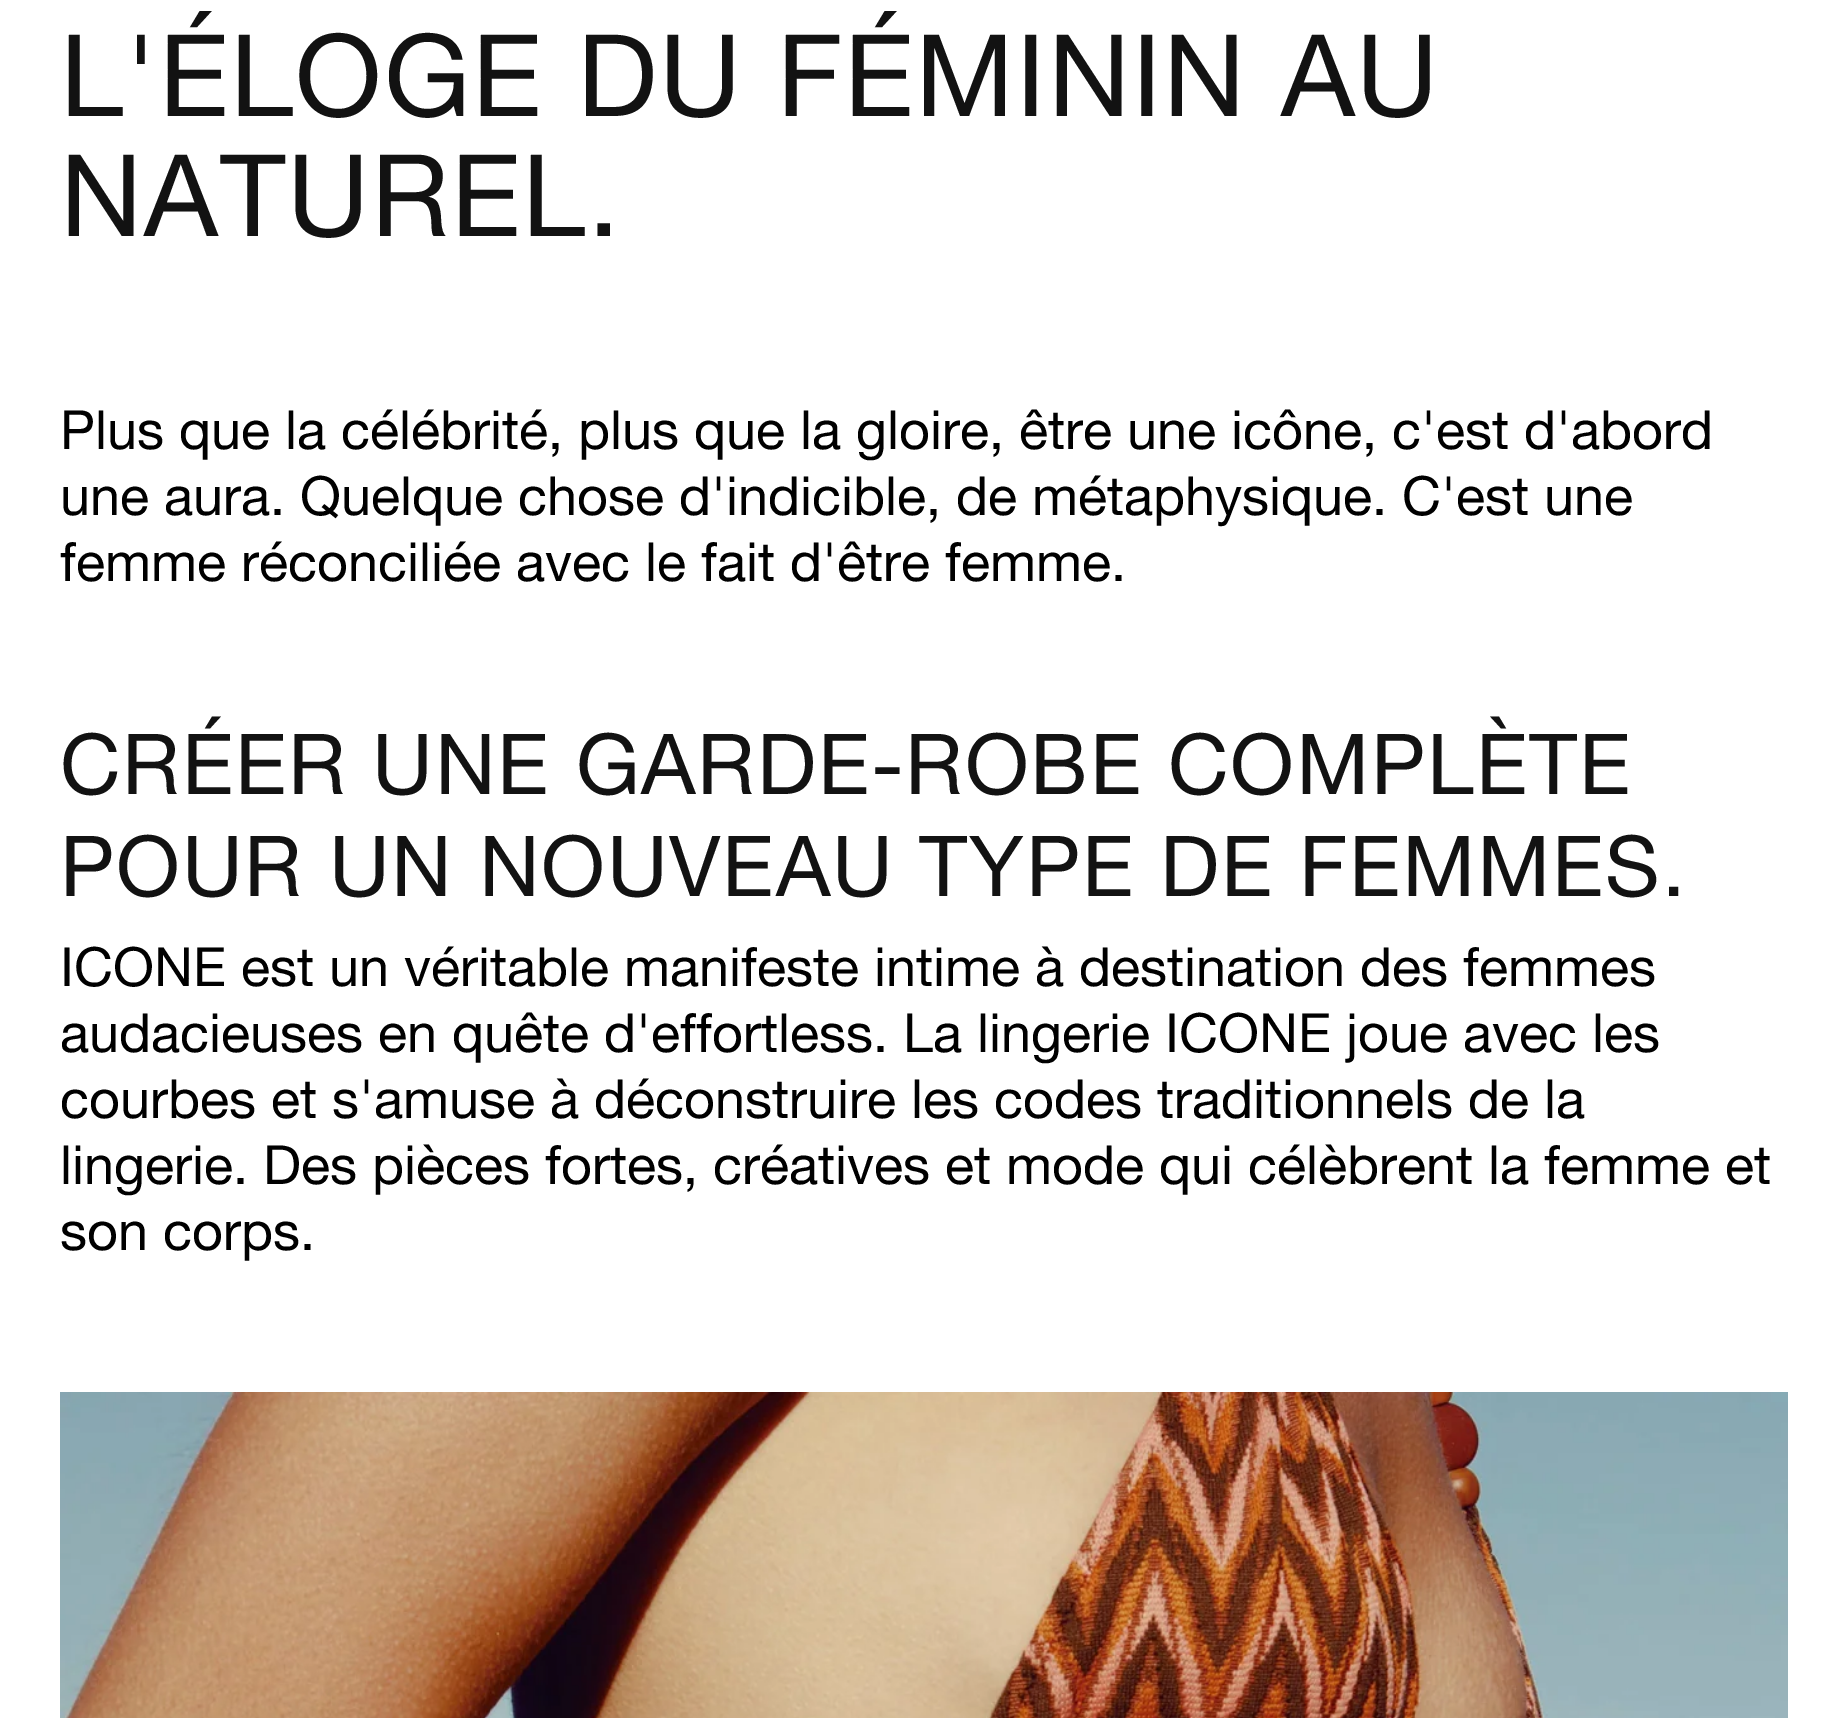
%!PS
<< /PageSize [1848 1718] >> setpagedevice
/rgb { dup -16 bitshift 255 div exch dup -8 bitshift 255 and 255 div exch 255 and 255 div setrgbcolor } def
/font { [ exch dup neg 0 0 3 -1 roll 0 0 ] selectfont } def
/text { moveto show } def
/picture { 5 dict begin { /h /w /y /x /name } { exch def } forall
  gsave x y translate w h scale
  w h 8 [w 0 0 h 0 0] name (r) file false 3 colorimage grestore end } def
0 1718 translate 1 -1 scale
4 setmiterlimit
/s1 { /HelveticaNeue-Regular 54 font 16#000000 rgb } def
16#FFFFFF rgb
0 0 1848 1718 rectfill
/HelveticaNeue-Regular 114 font
16#121212 rgb
60 116 moveto 1.8 0 (L'ÉLOGE DU FÉMININ AU) ashow
60 236 moveto 1.8 0 (NATUREL.) ashow
s1
(Plus que la célébrité, plus que la gloire, être une icône, c'est d'abord) 60 449 text
(une aura. Quelque chose d'indicible, de métaphysique. C'est une) 60 515 text
(femme réconciliée avec le fait d'être femme.) 60 581 text
/HelveticaNeue-Regular 84 font
16#121212 rgb
60 794 moveto 1.8 0 (CRÉER UNE GARDE-ROBE COMPLÈTE) ashow
60 896 moveto 1.8 0 (POUR UN NOUVEAU TYPE DE FEMMES.) ashow
s1
(ICONE est un véritable manifeste intime à destination des femmes) 60 986 text
(audacieuses en quête d'effortless. La lingerie ICONE joue avec les) 60 1052 text
(courbes et s'amuse à déconstruire les codes traditionnels de la) 60 1118 text
(lingerie. Des pièces fortes, créatives et mode qui célèbrent la femme et) 60 1184 text
(son corps.) 60 1250 text
(pic1.raw) 60 1392 1728 326 picture
showpage
